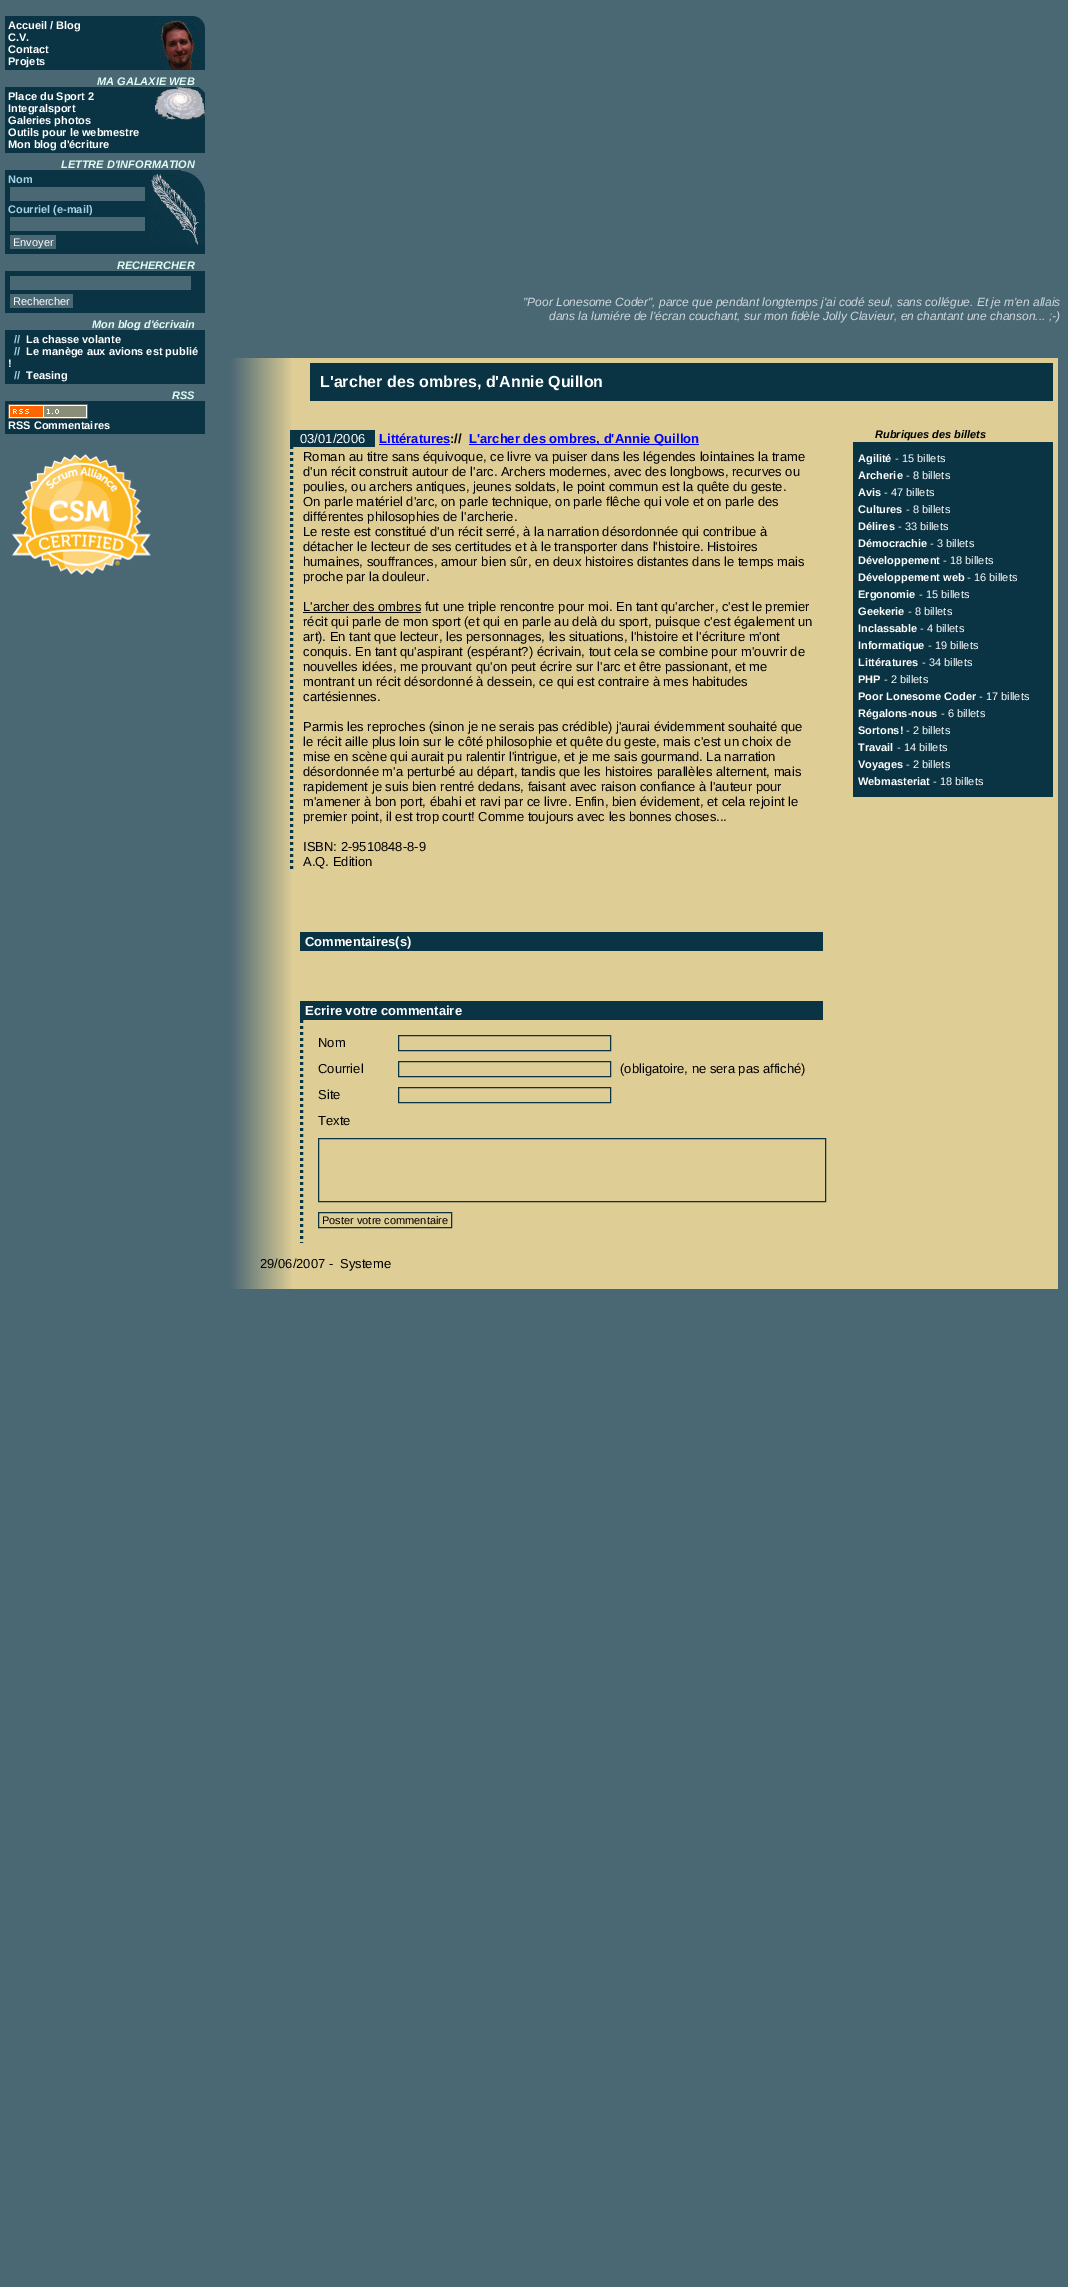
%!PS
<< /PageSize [1068 2287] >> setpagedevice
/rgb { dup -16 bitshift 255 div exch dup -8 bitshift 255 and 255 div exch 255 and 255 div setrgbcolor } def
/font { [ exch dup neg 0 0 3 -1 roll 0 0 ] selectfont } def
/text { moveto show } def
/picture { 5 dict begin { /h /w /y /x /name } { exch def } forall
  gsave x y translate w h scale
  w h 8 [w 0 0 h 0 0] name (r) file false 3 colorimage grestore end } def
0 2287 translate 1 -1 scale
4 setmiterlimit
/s1 { /LiberationSans-Bold 11 font 16#FFFFFF rgb } def
/s2 { /LiberationSans-BoldItalic 11 font 16#DFFDF4 rgb } def
/s3 { /LiberationSans-Bold 11 font 16#A4D1E3 rgb } def
/s4 { /LiberationSans-Regular 11 font 16#FFFFFF rgb } def
/s5 { /LiberationSans-Italic 12 font 16#CFD9DC rgb } def
/s6 { /LiberationSans-Bold 16 font 16#FFFFFF rgb } def
/s7 { /LiberationSans-Regular 13 font 16#FFFFFF rgb } def
/s8 { /LiberationSans-Bold 13 font 16#0000FF rgb } def
/s9 { /LiberationSans-Bold 13 font 16#000000 rgb } def
/s10 { /LiberationSans-Regular 13 font 16#000000 rgb } def
/s11 { /LiberationSans-BoldItalic 11 font 16#000000 rgb } def
/s12 { /LiberationSans-Bold 13 font 16#FFFFFF rgb } def
/s13 { /LiberationSans-Regular 11 font 16#000000 rgb } def
16#4A6774 rgb
0 0 1068 2287 rectfill
16#0A3443 rgb
5 16 150 54 rectfill
(pic1.raw) 155 16 50 54 picture
s1
(Accueil / Blog) 8 29 text
(C.V.) 8 41 text
(Contact) 8 53 text
(Projets) 8 65 text
s2
(MA GALAXIE WEB) 97 85 text
16#0A3443 rgb
5 87 200 66 rectfill
(pic2.raw) 155 87 50 33 picture
s1
(Place du Sport 2) 8 100 text
(Integralsport) 8 112 text
(Galeries photos) 8 124 text
(Outils pour le webmestre) 8 136 text
(Mon blog d'écriture) 8 148 text
s2
(LETTRE D'INFORMATION) 61 168 text
16#0A3443 rgb
5 170 200 84 rectfill
(pic3.raw) 151 170 54 75 picture
s3
(Nom) 8 183 text
16#4A6774 rgb
10 187 135 14 rectfill
s3
(Courriel \(e-mail\)) 8 213 text
16#4A6774 rgb
10 217 135 14 rectfill
10 235 46 14 rectfill
s4
(Envoyer) 13 246 text
s2
(RECHERCHER) 117 269 text
16#0A3443 rgb
5 271 200 42 rectfill
16#4A6774 rgb
10 276 181 14 rectfill
10 294 63 14 rectfill
s4
(Rechercher) 13 305 text
16#0A3443 rgb
5 330 200 54 rectfill
s2
(Mon blog d'écrivain) 92 328 text
s3
(//) 14 343 text
s1
(La chasse volante) 26 343 text
s3
(//) 14 355 text
s1
(Le manège aux avions est publié) 26 355 text
(!) 8 367 text
s3
(//) 14 379 text
s1
(Teasing) 26 379 text
s2
(RSS) 172 399 text
16#0A3443 rgb
5 401 200 33 rectfill
(pic4.raw) 8 404 80 15 picture
s1
(RSS Commentaires) 8 429 text
(pic5.raw) 12 454 139 121 picture
s5
("Poor Lonesome Coder", parce que pendant longtemps j'ai codé seul, sans collégue. Et je m'en allais) 523 306 text
(dans la lumiére de l'écran couchant, sur mon fidèle Jolly Clavieur, en chantant une chanson... ;-\)) 549 320 text
16#DECD95 rgb
291 358 767 931 rectfill
(pic6.raw) 230 358 61 931 picture
16#0A3443 rgb
310 363 743 38 rectfill
s6
(L'archer des ombres, d'Annie Quillon) 320 387 text
16#0A3443 rgb
3 setlinewidth
[3 3] 0 setdash
291.5 446 moveto 291.5 872 lineto stroke
290 430 85 17 rectfill
s7
(03/01/2006) 300 443 text
s8
(Littératures) 379 443 text
379 444 71 1 rectfill
s9
(://) 450 443 text
16#0000FF rgb
469 444 230 1 rectfill
(L'archer des ombres, d'Annie Quillon) 469 443 text
s10
(Roman au titre sans équivoque, ce livre va puiser dans les légendes lointaines la trame) 303 461 text
(d'un récit construit autour de l'arc. Archers modernes, avec des longbows, recurves ou) 303 476 text
(poulies, ou archers antiques, jeunes soldats, le point commun est la quête du geste.) 303 491 text
(On parle matériel d'arc, on parle technique, on parle flêche qui vole et on parle des) 303 506 text
(différentes philosophies de l'archerie.) 303 521 text
(Le reste est constitué d'un récit serré, à la narration désordonnée qui contribue à) 303 536 text
(détacher le lecteur de ses certitudes et à le transporter dans l'histoire. Histoires) 303 551 text
(humaines, souffrances, amour bien sûr, en deux histoires distantes dans le temps mais) 303 566 text
(proche par la douleur.) 303 581 text
303 612 118 1 rectfill
(L'archer des ombres fut une triple rencontre pour moi. En tant qu'archer, c'est le premier) 303 611 text
(récit qui parle de mon sport \(et qui en parle au delà du sport, puisque c'est également un) 303 626 text
(art\). En tant que lecteur, les personnages, les situations, l'histoire et l'écriture m'ont) 303 641 text
(conquis. En tant qu'aspirant \(espérant?\) écrivain, tout cela se combine pour m'ouvrir de) 303 656 text
(nouvelles idées, me prouvant qu'on peut écrire sur l'arc et être passionant, et me) 303 671 text
(montrant un récit désordonné à dessein, ce qui est contraire à mes habitudes) 303 686 text
(cartésiennes.) 303 701 text
(Parmis les reproches \(sinon je ne serais pas crédible\) j'aurai évidemment souhaité que) 303 731 text
(le récit aille plus loin sur le côté philosophie et quête du geste, mais c'est un choix de) 303 746 text
(mise en scène qui aurait pu ralentir l'intrigue, et je me sais gourmand. La narration) 303 761 text
(désordonnée m'a perturbé au départ, tandis que les histoires parallèles alternent, mais) 303 776 text
(rapidement je suis bien rentré dedans, faisant avec raison confiance à l'auteur pour) 303 791 text
(m'amener à bon port, ébahi et ravi par ce livre. Enfin, bien évidement, et cela rejoint le) 303 806 text
(premier point, il est trop court! Comme toujours avec les bonnes choses...) 303 821 text
(ISBN: 2-9510848-8-9) 303 851 text
(A.Q. Edition) 303 866 text
s11
(Rubriques des billets) 875 438 text
16#0A3443 rgb
853 442 200 355 rectfill
s1
(Agilité) 858 462 text
s4
(- 15 billets) 895 462 text
s1
(Archerie) 858 479 text
s4
(- 8 billets) 906 479 text
s1
(Avis) 858 496 text
s4
(- 47 billets) 884 496 text
s1
(Cultures) 858 513 text
s4
(- 8 billets) 906 513 text
s1
(Délires) 858 530 text
s4
(- 33 billets) 898 530 text
s1
(Démocrachie) 858 547 text
s4
(- 3 billets) 930 547 text
s1
(Développement) 858 564 text
s4
(- 18 billets) 943 564 text
s1
(Développement web) 858 581 text
s4
(- 16 billets) 967 581 text
s1
(Ergonomie) 858 598 text
s4
(- 15 billets) 919 598 text
s1
(Geekerie) 858 615 text
s4
(- 8 billets) 908 615 text
s1
(Inclassable) 858 632 text
s4
(- 4 billets) 920 632 text
s1
(Informatique) 858 649 text
s4
(- 19 billets) 928 649 text
s1
(Littératures) 858 666 text
s4
(- 34 billets) 922 666 text
s1
(PHP) 858 683 text
s4
(- 2 billets) 884 683 text
s1
(Poor Lonesome Coder) 858 700 text
s4
(- 17 billets) 979 700 text
s1
(Régalons-nous) 858 717 text
s4
(- 6 billets) 941 717 text
s1
(Sortons!) 858 734 text
s4
(- 2 billets) 906 734 text
s1
(Travail) 858 751 text
s4
(- 14 billets) 897 751 text
s1
(Voyages) 858 768 text
s4
(- 2 billets) 906 768 text
s1
(Webmasteriat) 858 785 text
s4
(- 18 billets) 933 785 text
16#0A3443 rgb
300 932 523 19 rectfill
s12
(Commentaires\(s\)) 305 946 text
16#0A3443 rgb
300 1001 523 19 rectfill
s12
(Ecrire votre commentaire) 305 1015 text
16#0A3443 rgb
301.5 1020 moveto 301.5 1243 lineto stroke
s10
(Nom) 318 1047 text
16#0A3443 rgb
1 setlinewidth
[] 0 setdash
398.5 1035.5 212 15 rectstroke
s10
(Courriel) 318 1073 text
16#0A3443 rgb
398.5 1061.5 212 15 rectstroke
s10
(\(obligatoire, ne sera pas affiché\)) 620 1073 text
(Site) 318 1099 text
16#0A3443 rgb
398.5 1087.5 212 15 rectstroke
s10
(Texte) 318 1125 text
16#0A3443 rgb
318.5 1138.5 507 63 rectstroke
318.5 1212.5 133 15 rectstroke
s13
(Poster votre commentaire) 322 1224 text
s10
(29/06/2007 -  Systeme) 260 1268 text
showpage
